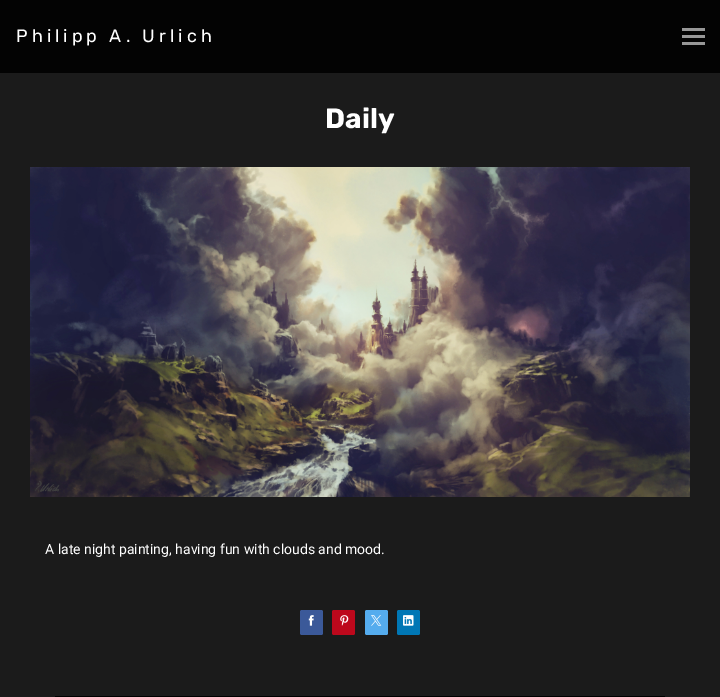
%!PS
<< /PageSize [720 697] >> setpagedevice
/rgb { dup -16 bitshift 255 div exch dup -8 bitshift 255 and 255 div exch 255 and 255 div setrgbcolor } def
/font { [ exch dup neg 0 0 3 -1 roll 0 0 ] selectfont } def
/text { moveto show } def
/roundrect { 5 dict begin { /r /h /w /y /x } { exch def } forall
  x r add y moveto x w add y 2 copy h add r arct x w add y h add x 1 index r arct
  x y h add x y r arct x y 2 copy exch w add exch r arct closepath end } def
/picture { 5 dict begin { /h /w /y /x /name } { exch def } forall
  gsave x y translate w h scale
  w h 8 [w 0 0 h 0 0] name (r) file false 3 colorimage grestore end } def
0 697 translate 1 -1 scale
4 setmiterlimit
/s1 { /Rubik-Bold 28 font 16#FFFFFF rgb } def
/s2 { /Roboto-Regular 14 font 16#FFFFFF rgb } def
16#1B1B1B rgb
0 0 720 697 rectfill
16#030303 rgb
0 0 720 73 rectfill
/Rubik-Regular 18 font
16#FFFFFF rgb
16 42 moveto 4 0 (Philipp A. Urlich) ashow
16#979797 rgb
682 28 23 3 rectfill
682 35 23 3 rectfill
682 42 23 3 rectfill
s1
(Daily) 325 128 text
(pic1.raw) 30 167 660 330 picture
s2
(A late night painting, having fun with clouds and mood.) 45 554 text
16#3B5999 rgb
300 610 23 25 2 roundrect fill
(pic2.raw) 308 615 6 11 picture
16#BD081C rgb
332 610 23 25 2 roundrect fill
(pic3.raw) 340 615 9 11 picture
16#55ACEE rgb
365 610 23 25 2 roundrect fill
(pic4.raw) 371 615 11 11 picture
16#0077B5 rgb
397 610 23 25 2 roundrect fill
(pic5.raw) 403 615 11 11 picture
16#000000 rgb
55 696 610 1 rectfill
showpage
